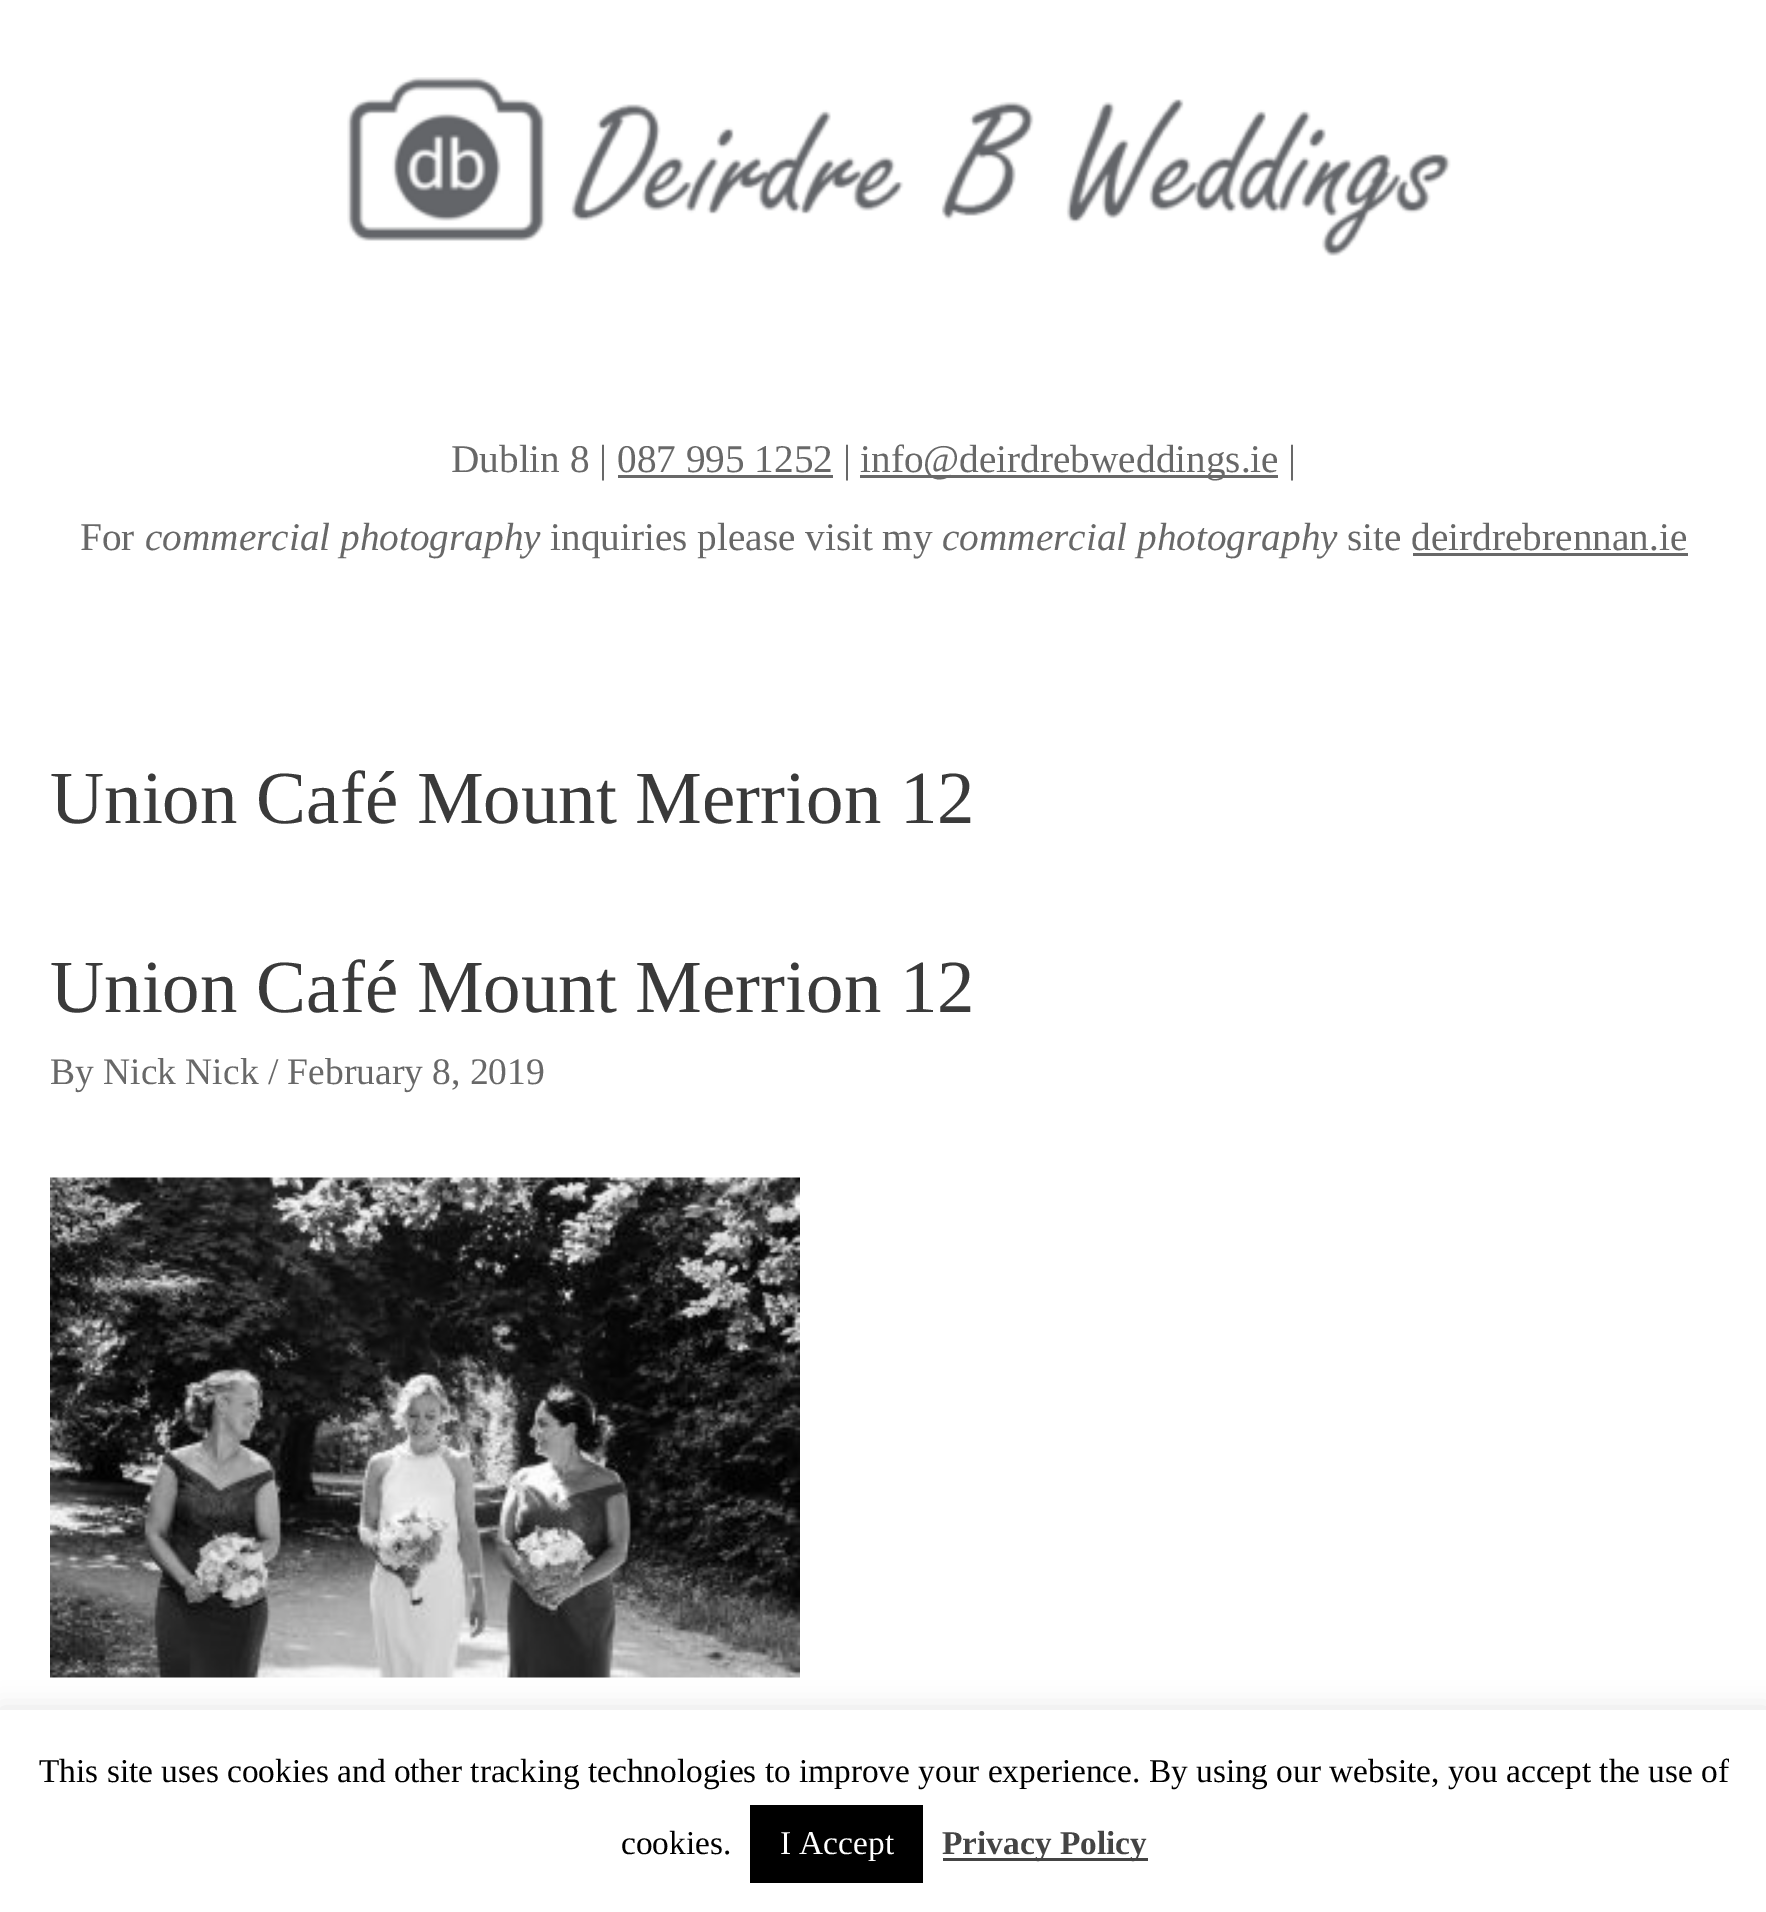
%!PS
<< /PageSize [1766 1912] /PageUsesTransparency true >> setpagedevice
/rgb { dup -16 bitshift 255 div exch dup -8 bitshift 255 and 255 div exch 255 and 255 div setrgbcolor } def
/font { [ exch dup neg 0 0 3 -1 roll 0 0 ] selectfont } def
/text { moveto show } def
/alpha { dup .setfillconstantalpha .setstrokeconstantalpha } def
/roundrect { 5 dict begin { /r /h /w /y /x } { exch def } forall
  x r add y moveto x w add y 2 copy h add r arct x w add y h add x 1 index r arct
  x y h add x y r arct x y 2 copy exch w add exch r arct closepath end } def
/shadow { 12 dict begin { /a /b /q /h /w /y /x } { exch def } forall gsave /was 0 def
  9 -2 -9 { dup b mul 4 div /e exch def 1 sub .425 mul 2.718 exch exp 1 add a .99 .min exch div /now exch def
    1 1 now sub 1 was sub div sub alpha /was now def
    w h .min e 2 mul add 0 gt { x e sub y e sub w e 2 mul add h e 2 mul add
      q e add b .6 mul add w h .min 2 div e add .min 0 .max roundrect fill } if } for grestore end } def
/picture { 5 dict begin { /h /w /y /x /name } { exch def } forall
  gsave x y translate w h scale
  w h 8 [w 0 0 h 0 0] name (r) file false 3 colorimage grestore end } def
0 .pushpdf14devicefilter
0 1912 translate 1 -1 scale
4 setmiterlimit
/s1 { /LiberationSerif-Regular 39.25 font 16#686868 rgb } def
/s2 { /LiberationSerif-Italic 39.25 font 16#686868 rgb } def
/s3 { /LiberationSerif-Regular 75 font 16#3A3A3A rgb } def
/s4 { /LiberationSerif-Regular 37.5 font 16#686868 rgb } def
/s5 { /LiberationSerif-Regular 33.33 font 16#000000 rgb } def
/s6 { /LiberationSerif-Regular 33.33 font 16#FFFFFF rgb } def
/s7 { /LiberationSerif-Bold 33.33 font 16#444444 rgb } def
16#FFFFFF rgb
0 0 1766 1912 rectfill
(pic1.raw) 347 77 1104 179 picture
s1
(Dublin 8 | 087 995 1252 |) 451 472 text
860 475 418 3 rectfill
(info@deirdrebweddings.ie) 860 472 text
(|) 1288 472 text
618 475 215 3 rectfill
(For) 80 550 text
s2
(commercial photography) 145 550 text
s1
(inquiries please visit my) 550 550 text
s2
(commercial photography) 942 550 text
s1
(site deirdrebrennan.ie) 1347 550 text
1413 553 275 3 rectfill
s3
(Union Café Mount Merrion 12) 50 823 text
(Union Café Mount Merrion 12) 50 1012 text
s4
(By Nick Nick / February 8, 2019) 50 1084 text
(pic2.raw) 50 1177 750 501 picture
16#ACABAB rgb
0 1708 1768 202 0 12.5 0.3 shadow
16#FFFFFF rgb
0 1710 1766 202 rectfill
s5
(This site uses cookies and other tracking technologies to improve your experience. By using our website, you accept the use of) 39 1782 text
(cookies.) 621 1854 text
750 1805 173 78 rectfill
s6
(I Accept) 780 1854 text
16#444444 rgb
943 1858 205 3 rectfill
s7
(Privacy Policy) 942 1854 text
.poppdf14devicefilter showpage
